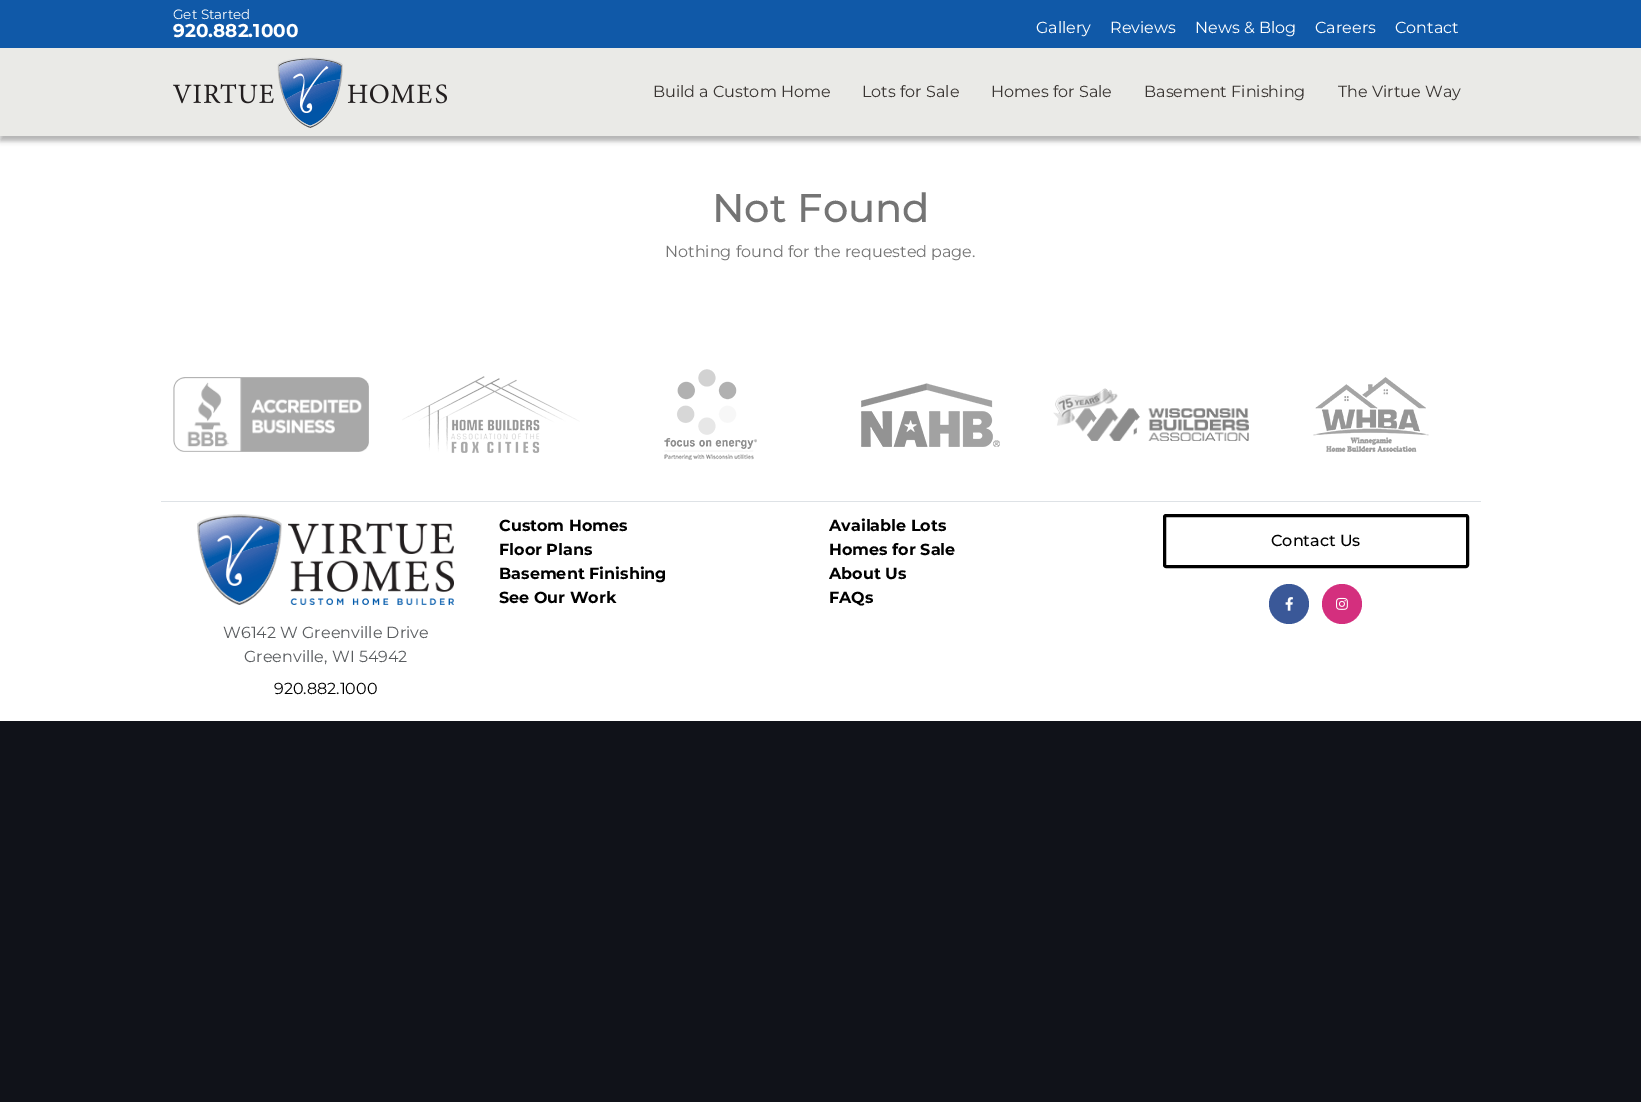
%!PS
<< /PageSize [1641 1102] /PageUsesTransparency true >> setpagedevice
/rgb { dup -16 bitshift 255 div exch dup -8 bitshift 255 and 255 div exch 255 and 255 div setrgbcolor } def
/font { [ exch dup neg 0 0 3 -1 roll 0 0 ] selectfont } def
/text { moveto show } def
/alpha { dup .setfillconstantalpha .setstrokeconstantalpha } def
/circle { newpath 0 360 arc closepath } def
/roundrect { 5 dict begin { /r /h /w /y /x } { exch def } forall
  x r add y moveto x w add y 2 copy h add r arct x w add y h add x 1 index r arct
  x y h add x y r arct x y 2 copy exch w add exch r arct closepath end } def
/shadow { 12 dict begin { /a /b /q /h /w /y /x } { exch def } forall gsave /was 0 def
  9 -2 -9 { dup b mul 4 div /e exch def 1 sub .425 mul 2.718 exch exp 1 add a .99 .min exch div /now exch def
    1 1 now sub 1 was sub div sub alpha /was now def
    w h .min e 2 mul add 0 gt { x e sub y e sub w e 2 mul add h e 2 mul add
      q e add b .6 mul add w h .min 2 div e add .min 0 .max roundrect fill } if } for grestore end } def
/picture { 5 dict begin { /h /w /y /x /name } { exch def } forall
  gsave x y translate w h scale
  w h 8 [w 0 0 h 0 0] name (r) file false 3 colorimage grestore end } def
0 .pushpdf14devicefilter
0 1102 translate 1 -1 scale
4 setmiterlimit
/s1 { /Montserrat-Regular 13.5 font 16#FFFFFF rgb } def
/s2 { /Montserrat-Bold 18.5 font 16#FFFFFF rgb } def
/s3 { /Montserrat-Regular 16 font 16#FFFFFF rgb } def
/s4 { /Montserrat-Regular 16 font 16#393532 rgb } def
/s5 { /Montserrat-Medium 40 font 16#747474 rgb } def
/s6 { /Montserrat-Regular 16 font 16#747474 rgb } def
/s7 { /Montserrat-Bold 16 font 16#000000 rgb } def
/s8 { /Montserrat-Medium 16 font 16#000000 rgb } def
/s9 { /Montserrat-Regular 16 font 16#595C5F rgb } def
/s10 { /Montserrat-Regular 16 font 16#000000 rgb } def
16#101219 rgb
0 0 1641 1102 rectfill
16#1059A8 rgb
0 0 1641 48 rectfill
s1
(Get Started) 173 19 text
s2
(920.882.1000) 173 37 text
s3
(Gallery) 1036 33 text
(Reviews) 1110 33 text
(News & Blog) 1195 33 text
(Careers) 1315 33 text
(Contact) 1395 33 text
0 136 1641 585 rectfill
16#000000 rgb
0 53 1641 88 0 2.5 0.3 shadow
16#EAEAE7 rgb
0 48 1641 88 rectfill
(pic1.raw) 173 57 274 71 picture
s4
(Build a Custom Home) 653 97 text
(Lots for Sale) 862 97 text
(Homes for Sale) 991 97 text
(Basement Finishing) 1144 97 text
(The Virtue Way) 1338 97 text
s5
(Not Found) 712 222 text
s6
(Nothing found for the requested page.) 665 257 text
16#DEE2E6 rgb
161 501 1320 1 rectfill
(pic2.raw) 173 377 196 75 picture
(pic3.raw) 402 376 178 77 picture
(pic4.raw) 664 369 93 91 picture
(pic5.raw) 861 383 139 64 picture
(pic6.raw) 1053 388 196 53 picture
(pic7.raw) 1313 377 116 75 picture
s7
(Custom Homes) 499 531 text
(Floor Plans) 499 555 text
(Basement Finishing) 499 579 text
(See Our Work) 499 603 text
(Available Lots) 829 531 text
(Homes for Sale) 829 555 text
(About Us) 829 579 text
(FAQs) 829 603 text
3 setlinewidth
1164.5 515.5 303 51 1.5 roundrect stroke
s8
(Contact Us) 1271 546 text
16#3A5898 rgb
1289 604 20 circle fill
(pic8.raw) 1285 597 8 14 picture
16#D42F7E rgb
1342 604 20 circle fill
(pic9.raw) 1336 597 12 13 picture
(pic10.raw) 197 514 257 91 picture
s9
(W6142 W Greenville Drive) 223 638 text
(Greenville, WI 54942) 244 662 text
s10
(920.882.1000) 274 694 text
.poppdf14devicefilter showpage
